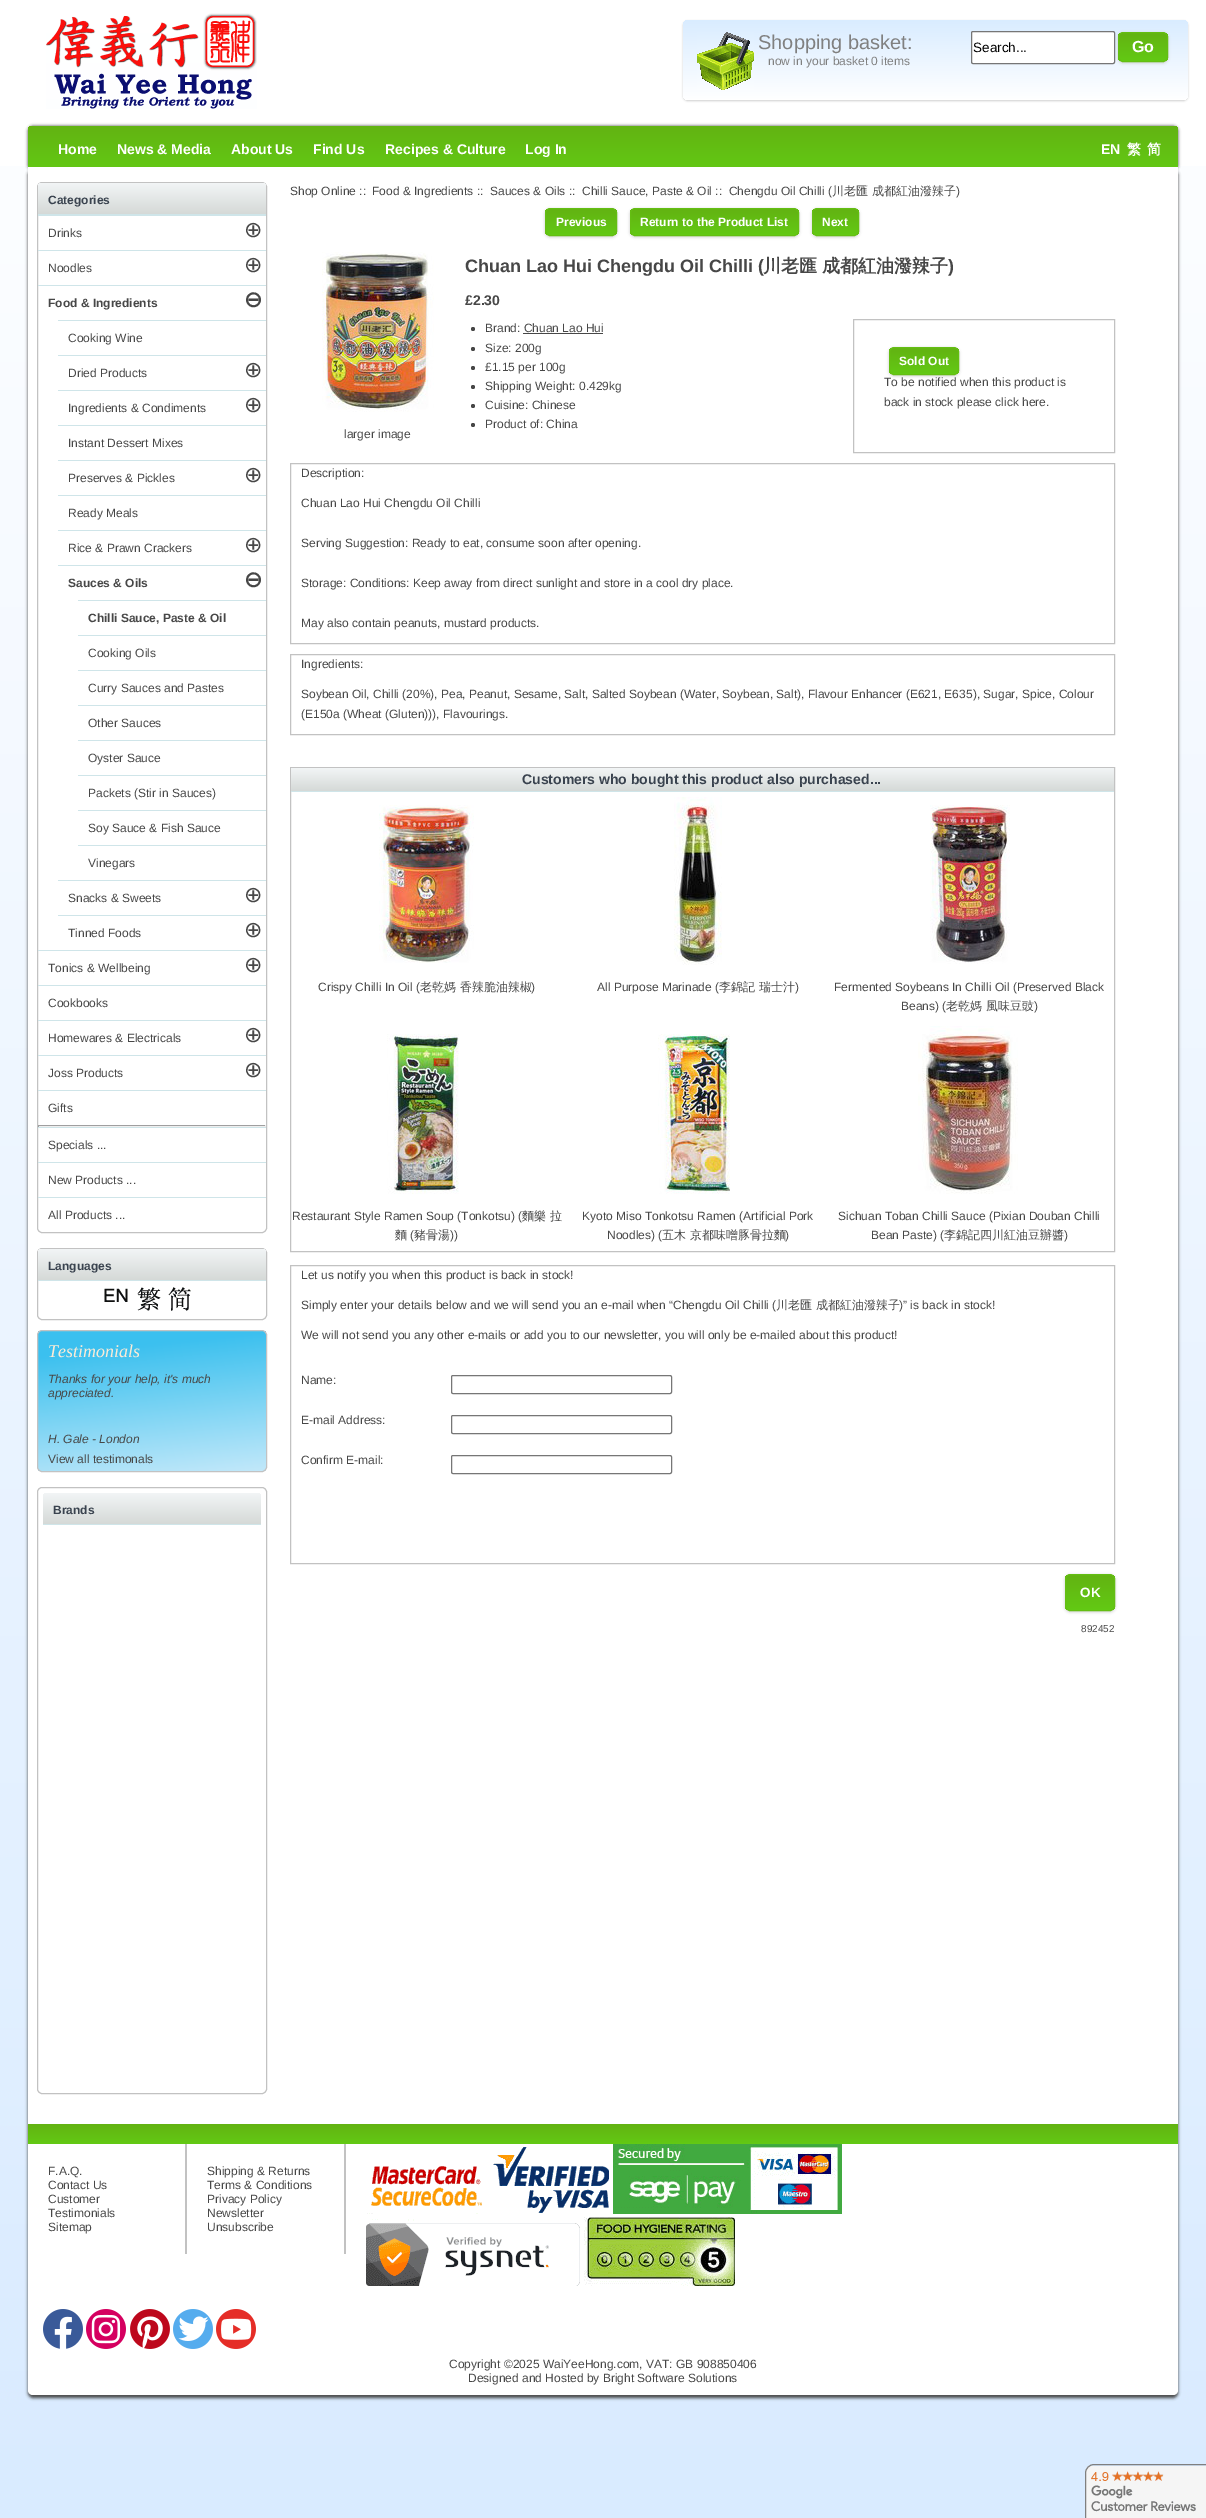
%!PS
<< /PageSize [1206 2518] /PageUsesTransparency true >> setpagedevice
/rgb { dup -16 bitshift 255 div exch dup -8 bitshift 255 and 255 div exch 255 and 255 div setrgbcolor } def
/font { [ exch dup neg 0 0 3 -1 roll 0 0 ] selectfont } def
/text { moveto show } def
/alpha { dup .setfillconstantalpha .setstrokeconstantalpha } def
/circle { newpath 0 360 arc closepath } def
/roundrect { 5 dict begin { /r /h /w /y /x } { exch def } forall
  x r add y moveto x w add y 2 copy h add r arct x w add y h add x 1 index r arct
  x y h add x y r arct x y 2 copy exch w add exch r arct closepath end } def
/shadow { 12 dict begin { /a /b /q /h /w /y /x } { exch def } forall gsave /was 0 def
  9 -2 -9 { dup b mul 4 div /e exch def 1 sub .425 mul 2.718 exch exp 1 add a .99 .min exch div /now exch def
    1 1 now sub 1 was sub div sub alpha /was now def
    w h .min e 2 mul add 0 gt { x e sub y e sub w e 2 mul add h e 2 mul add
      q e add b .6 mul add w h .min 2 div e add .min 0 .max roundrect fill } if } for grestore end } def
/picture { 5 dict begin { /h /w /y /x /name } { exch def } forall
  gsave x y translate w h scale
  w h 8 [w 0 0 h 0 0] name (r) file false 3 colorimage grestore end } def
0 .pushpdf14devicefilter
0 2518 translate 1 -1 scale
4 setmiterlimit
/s1 { /LiberationSans-Regular 20 font 16#808080 rgb } def
/s2 { /LiberationSans-Regular 12 font 16#808080 rgb } def
/s3 { /LiberationSans-Regular 13.5 font 16#000000 rgb } def
/s4 { /LiberationSans-Bold 16 font 16#FFFFFF rgb } def
/s5 { /LiberationSans-Bold 14 font 16#FFFFFF rgb } def
/s6 { /WenQuanYiZenHei-Bold 14 font 16#FFFFFF rgb } def
/s7 { /LiberationSans-Bold 12 font 16#3A434F rgb } def
/s8 { /LiberationSans-Regular 12 font 16#474747 rgb } def
/s9 { /DejaVuSans-Regular 22 font 16#474747 rgb } def
/s10 { /LiberationSans-Bold 12 font 16#474747 rgb } def
/s11 { /DejaVuSans-Bold 22 font 16#474747 rgb } def
/s12 { /LiberationSerif-Italic 18 font 16#FAEBD7 rgb } def
/s13 { /LiberationSans-Italic 12 font 16#474747 rgb } def
/s14 { /WenQuanYiZenHei-Medium 12 font 16#474747 rgb } def
/s15 { /LiberationSans-Bold 12 font 16#FFFFFF rgb } def
/s16 { /LiberationSans-Bold 18 font 16#474747 rgb } def
/s17 { /WenQuanYiZenHei-Bold 18 font 16#474747 rgb } def
/s18 { /LiberationSans-Bold 14 font 16#474747 rgb } def
/s19 { /LiberationSans-Bold 14 font 16#3A434F rgb } def
/s20 { /LiberationSans-Bold 13.5 font 16#FFFFFF rgb } def
/s21 { /LiberationSans-Regular 10 font 16#474747 rgb } def
16#FFFFFF rgb
0 0 1206 2518 rectfill
gsave 0 166 moveto 1206 166 lineto 1206 2518 lineto 0 2518 lineto closepath clip newpath
<< /ShadingType 2 /ColorSpace /DeviceRGB /Coords [603 0 603 2518] /Extend [true true] /Function << /FunctionType 2 /Domain [0 1] /C0 [1 1 1] /C1 [0.851 0.922 1] /N 1 >> >> shfill grestore
(pic1.raw) 46 13 211 96 picture
16#CCCCCC rgb
683 21 505 80 5 1 1 shadow
gsave 683 20 505 80 5 roundrect clip newpath
<< /ShadingType 2 /ColorSpace /DeviceRGB /Coords [936 20 936 100] /Extend [true true] /Function << /FunctionType 2 /Domain [0 1] /C0 [0.851 0.925 1] /C1 [1 1 1] /N 1 >> >> shfill grestore
(pic2.raw) 697 32 57 58 picture
s1
(Shopping basket:) 758 49 text
s2
(now in your basket 0 items) 768 65 text
16#FFFFFF rgb
971.5 31.5 143 32 1.5 roundrect gsave fill grestore
16#767676 rgb
stroke
s3
(Search...) 973 52 text
16#CCCCCC rgb
1118 33 50 30 5 1.5 1 shadow
gsave
1118 32 50 30 5 roundrect clip newpath
gsave 1118 33 moveto 1168 33 lineto 1168 61 lineto 1118 61 lineto closepath clip newpath
<< /ShadingType 2 /ColorSpace /DeviceRGB /Coords [1143 33 1143 61] /Extend [true true] /Function << /FunctionType 2 /Domain [0 1] /C0 [0.384 0.702 0.071] /C1 [0.384 0.788 0.078] /N 1 >> >> shfill grestore
grestore
16#64BE13 rgb
1118.5 32.5 49 29 4.5 roundrect stroke
s4
(Go) 1132 52 text
16#4A4A4A rgb
28 126 1150 44 5 1.5 1 shadow
gsave 33 126 moveto 1173 126 lineto 1176 126 1178 128 1178 131 curveto 1178 170 lineto 28 170 lineto 28 131 lineto 28 128 30 126 33 126 curveto closepath clip newpath
<< /ShadingType 2 /ColorSpace /DeviceRGB /Coords [603 126 603 170] /Extend [true true] /Function << /FunctionType 2 /Domain [0 1] /C0 [0.384 0.702 0.071] /C1 [0.384 0.788 0.078] /N 1 >> >> shfill grestore
s5
(Home) 58 154 text
(News & Media) 117 154 text
(About Us) 231 154 text
(Find Us) 313 154 text
(Recipes & Culture) 385 154 text
(Log In) 525 154 text
(EN) 1101 154 text
s6
(繁) 1127 154 text
(简) 1147 154 text
16#4A4A4A rgb
28 170 1150 2228 5 1.5 1 shadow
16#FFFFFF rgb
28 167 moveto 1178 167 lineto 1178 2390 lineto 1178 2393 1176 2395 1173 2395 curveto 33 2395 lineto 30 2395 28 2393 28 2390 curveto closepath fill
16#C2C2C2 rgb
37.5 182.5 229 1050 4.5 roundrect stroke
gsave 43 183 moveto 261 183 lineto 264 183 266 185 266 188 curveto 266 214 lineto 38 214 lineto 38 188 lineto 38 185 40 183 43 183 curveto closepath clip newpath
<< /ShadingType 2 /ColorSpace /DeviceRGB /Coords [152 183 152 214] /Extend [true true] /Function << /FunctionType 2 /Domain [0 1] /C0 [0.949 0.961 0.965] /C1 [0.835 0.851 0.843] /N 1 >> >> shfill grestore
16#CFE5E9 rgb
38 214 228 2 rectfill
s7
(Categories) 48 204 text
s8
(Drinks) 48 237 text
s9
(⊕) 244 237 text
16#CFE5E9 rgb
38 250 228 1 rectfill
s8
(Noodles) 48 272 text
s9
(⊕) 244 272 text
16#CFE5E9 rgb
38 285 228 1 rectfill
s10
(Food & Ingredients) 48 307 text
s11
(⊖) 244 307 text
16#CFE5E9 rgb
58 320 208 1 rectfill
s8
(Cooking Wine) 68 342 text
16#CFE5E9 rgb
58 355 208 1 rectfill
s8
(Dried Products) 68 377 text
s9
(⊕) 244 377 text
16#CFE5E9 rgb
58 390 208 1 rectfill
s8
(Ingredients & Condiments) 68 412 text
s9
(⊕) 244 412 text
16#CFE5E9 rgb
58 425 208 1 rectfill
s8
(Instant Dessert Mixes) 68 447 text
16#CFE5E9 rgb
58 460 208 1 rectfill
s8
(Preserves & Pickles) 68 482 text
s9
(⊕) 244 482 text
16#CFE5E9 rgb
58 495 208 1 rectfill
s8
(Ready Meals) 68 517 text
16#CFE5E9 rgb
58 530 208 1 rectfill
s8
(Rice & Prawn Crackers) 68 552 text
s9
(⊕) 244 552 text
16#CFE5E9 rgb
58 565 208 1 rectfill
s10
(Sauces & Oils) 68 587 text
s11
(⊖) 244 587 text
16#CFE5E9 rgb
78 600 188 1 rectfill
s10
(Chilli Sauce, Paste & Oil) 88 622 text
16#CFE5E9 rgb
78 635 188 1 rectfill
s8
(Cooking Oils) 88 657 text
16#CFE5E9 rgb
78 670 188 1 rectfill
s8
(Curry Sauces and Pastes) 88 692 text
16#CFE5E9 rgb
78 705 188 1 rectfill
s8
(Other Sauces) 88 727 text
16#CFE5E9 rgb
78 740 188 1 rectfill
s8
(Oyster Sauce) 88 762 text
16#CFE5E9 rgb
78 775 188 1 rectfill
s8
(Packets \(Stir in Sauces\)) 88 797 text
16#CFE5E9 rgb
78 810 188 1 rectfill
s8
(Soy Sauce & Fish Sauce) 88 832 text
16#CFE5E9 rgb
78 845 188 1 rectfill
s8
(Vinegars) 88 867 text
16#CFE5E9 rgb
58 880 208 1 rectfill
s8
(Snacks & Sweets) 68 902 text
s9
(⊕) 244 902 text
16#CFE5E9 rgb
58 915 208 1 rectfill
s8
(Tinned Foods) 68 937 text
s9
(⊕) 244 937 text
16#CFE5E9 rgb
38 950 228 1 rectfill
s8
(Tonics & Wellbeing) 48 972 text
s9
(⊕) 244 972 text
16#CFE5E9 rgb
38 985 228 1 rectfill
s8
(Cookbooks) 48 1007 text
16#CFE5E9 rgb
38 1020 228 1 rectfill
s8
(Homewares & Electricals) 48 1042 text
s9
(⊕) 244 1042 text
16#CFE5E9 rgb
38 1055 228 1 rectfill
s8
(Joss Products) 48 1077 text
s9
(⊕) 244 1077 text
16#CFE5E9 rgb
38 1090 228 1 rectfill
s8
(Gifts) 48 1112 text
16#9F9F9F rgb
38 1125 228 1 rectfill
16#EEEEEE rgb
265 1125 1 2 rectfill
38 1126 228 1 rectfill
16#9F9F9F rgb
38 1125 1 2 rectfill
16#CFE5E9 rgb
38 1127 228 1 rectfill
s8
(Specials ...) 48 1149 text
16#CFE5E9 rgb
38 1162 228 1 rectfill
s8
(New Products ...) 48 1184 text
16#CFE5E9 rgb
38 1197 228 1 rectfill
s8
(All Products ...) 48 1219 text
16#C2C2C2 rgb
37.5 1248.5 229 71 4.5 roundrect stroke
gsave 43 1249 moveto 261 1249 lineto 264 1249 266 1251 266 1254 curveto 266 1280 lineto 38 1280 lineto 38 1254 lineto 38 1251 40 1249 43 1249 curveto closepath clip newpath
<< /ShadingType 2 /ColorSpace /DeviceRGB /Coords [152 1249 152 1280] /Extend [true true] /Function << /FunctionType 2 /Domain [0 1] /C0 [0.949 0.961 0.965] /C1 [0.835 0.851 0.843] /N 1 >> >> shfill grestore
16#CFE5E9 rgb
38 1280 228 1 rectfill
s7
(Languages) 48 1270 text
(pic3.raw) 104 1288 24 14 picture
(pic4.raw) 137 1287 24 24 picture
(pic5.raw) 168 1287 23 24 picture
gsave
37 1330 230 142 5 roundrect clip newpath
gsave 38 1331 moveto 266 1331 lineto 266 1471 lineto 38 1471 lineto closepath clip newpath
<< /ShadingType 2 /ColorSpace /DeviceRGB /Coords [161 1482 143 1320] /Extend [true true] /Function << /FunctionType 3 /Domain [0 1] /Functions [<< /FunctionType 2 /Domain [0 1] /C0 [0.757 0.91 0.98] /C1 [0.231 0.753 0.937] /N 1 >> << /FunctionType 2 /Domain [0 1] /C0 [0.231 0.753 0.937] /C1 [0.231 0.753 0.937] /N 1 >>] /Bounds [0.85] /Encode [0 1 0 1] >> >> shfill grestore
grestore
16#C2C2C2 rgb
37.5 1330.5 229 141 4.5 roundrect stroke
s12
(Testimonials) 48 1357 text
s13
(Thanks for your help, it's much) 48 1383 text
(appreciated.) 48 1397 text
(H. Gale - London) 48 1443 text
s8
(View all testimonals) 48 1463 text
16#C2C2C2 rgb
37.5 1487.5 229 606 4.5 roundrect stroke
gsave 48 1493 moveto 256 1493 lineto 259 1493 261 1495 261 1498 curveto 261 1524 lineto 43 1524 lineto 43 1498 lineto 43 1495 45 1493 48 1493 curveto closepath clip newpath
<< /ShadingType 2 /ColorSpace /DeviceRGB /Coords [152 1493 152 1524] /Extend [true true] /Function << /FunctionType 2 /Domain [0 1] /C0 [0.949 0.961 0.965] /C1 [0.835 0.851 0.843] /N 1 >> >> shfill grestore
16#CFE5E9 rgb
43 1524 218 1 rectfill
s7
(Brands) 53 1514 text
s8
(Shop Online ::) 290 195 text
(Food & Ingredients ::) 372 195 text
(Sauces & Oils ::) 490 195 text
(Chilli Sauce, Paste & Oil ::  Chengdu Oil Chilli \() 582 195 text
s14
(川老匯 成都紅油潑辣子) 832 195 text
s8
(\)) 956 195 text
16#CCCCCC rgb
545 209 72 28 5 1.5 1 shadow
gsave
545 208 72 28 5 roundrect clip newpath
gsave 545 209 moveto 617 209 lineto 617 235 lineto 545 235 lineto closepath clip newpath
<< /ShadingType 2 /ColorSpace /DeviceRGB /Coords [581 209 581 235] /Extend [true true] /Function << /FunctionType 2 /Domain [0 1] /C0 [0.384 0.702 0.071] /C1 [0.384 0.788 0.078] /N 1 >> >> shfill grestore
grestore
16#64BE13 rgb
545.5 208.5 71 27 4.5 roundrect stroke
s15
(Previous) 556 226 text
16#CCCCCC rgb
630 209 169 28 5 1.5 1 shadow
gsave
630 208 169 28 5 roundrect clip newpath
gsave 630 209 moveto 799 209 lineto 799 235 lineto 630 235 lineto closepath clip newpath
<< /ShadingType 2 /ColorSpace /DeviceRGB /Coords [715 209 715 235] /Extend [true true] /Function << /FunctionType 2 /Domain [0 1] /C0 [0.384 0.702 0.071] /C1 [0.384 0.788 0.078] /N 1 >> >> shfill grestore
grestore
16#64BE13 rgb
630.5 208.5 168 27 4.5 roundrect stroke
s15
(Return to the Product List) 640 226 text
16#CCCCCC rgb
812 209 47 28 5 1.5 1 shadow
gsave
812 208 47 28 5 roundrect clip newpath
gsave 812 209 moveto 859 209 lineto 859 235 lineto 812 235 lineto closepath clip newpath
<< /ShadingType 2 /ColorSpace /DeviceRGB /Coords [836 209 836 235] /Extend [true true] /Function << /FunctionType 2 /Domain [0 1] /C0 [0.384 0.702 0.071] /C1 [0.384 0.788 0.078] /N 1 >> >> shfill grestore
grestore
16#64BE13 rgb
812.5 208.5 46 27 4.5 roundrect stroke
s15
(Next) 822 226 text
s16
(Chuan Lao Hui Chengdu Oil Chilli \() 465 272 text
s17
(川老匯) 763 272 text
(成都紅油潑辣子) 822 272 text
s16
(\)) 948 272 text
s18
(£2.30) 465 305 text
473 329 2 circle fill
s8
(Brand: Chuan Lao Hui) 485 332 text
523 333 80 1 rectfill
473 349 2 circle fill
(Size: 200g) 485 352 text
473 368 2 circle fill
(£1.15 per 100g) 485 371 text
473 387 2 circle fill
(Shipping Weight: 0.429kg) 485 390 text
473 406 2 circle fill
(Cuisine: Chinese) 485 409 text
473 425 2 circle fill
(Product of: China) 485 428 text
16#C2C2C2 rgb
853.5 319.5 261 133 rectstroke
16#CCCCCC rgb
889 348 70 28 5 1.5 1 shadow
gsave
889 347 70 28 5 roundrect clip newpath
gsave 889 348 moveto 959 348 lineto 959 374 lineto 889 374 lineto closepath clip newpath
<< /ShadingType 2 /ColorSpace /DeviceRGB /Coords [924 348 924 374] /Extend [true true] /Function << /FunctionType 2 /Domain [0 1] /C0 [0.384 0.702 0.071] /C1 [0.384 0.788 0.078] /N 1 >> >> shfill grestore
grestore
16#64BE13 rgb
889.5 347.5 69 27 4.5 roundrect stroke
s15
(Sold Out) 899 365 text
s8
(To be notified when this product is) 884 386 text
(back in stock please click here.) 884 406 text
(pic6.raw) 322 252 112 160 picture
(larger image) 344 438 text
16#C2C2C2 rgb
290.5 463.5 824 180 rectstroke
s8
(Description:) 301 477 text
(Chuan Lao Hui Chengdu Oil Chilli) 301 507 text
(Serving Suggestion: Ready to eat, consume soon after opening.) 301 547 text
(Storage: Conditions: Keep away from direct sunlight and store in a cool dry place.) 301 587 text
(May also contain peanuts, mustard products.) 301 627 text
16#C2C2C2 rgb
290.5 654.5 824 80 rectstroke
s8
(Ingredients:) 301 668 text
(Soybean Oil, Chilli \(20%\), Pea, Peanut, Sesame, Salt, Salted Soybean \(Water, Soybean, Salt\), Flavour Enhancer \(E621, E635\), Sugar, Spice, Colour) 301 698 text
(\(E150a \(Wheat \(Gluten\)\)\), Flavourings.) 301 718 text
16#C2C2C2 rgb
290.5 767.5 824 484 rectstroke
gsave 291 768 moveto 1114 768 lineto 1114 791 lineto 291 791 lineto closepath clip newpath
<< /ShadingType 2 /ColorSpace /DeviceRGB /Coords [703 768 703 791] /Extend [true true] /Function << /FunctionType 2 /Domain [0 1] /C0 [0.949 0.961 0.965] /C1 [0.835 0.851 0.843] /N 1 >> >> shfill grestore
16#CFE5E9 rgb
291 791 823 1 rectfill
s19
(Customers who bought this product also purchased...) 522 784 text
(pic7.raw) 379 805 95 158 picture
s8
(Crispy Chilli In Oil \() 318 991 text
s14
(老乾媽 香辣脆油辣椒) 420 991 text
s8
(\)) 531 991 text
(pic8.raw) 674 797 48 168 picture
(All Purpose Marinade \() 597 991 text
s14
(李錦記 瑞士汁) 719 991 text
s8
(\)) 795 991 text
(pic9.raw) 930 805 80 159 picture
(Fermented Soybeans In Chilli Oil \(Preserved Black) 834 991 text
(Beans\) \() 901 1010 text
s14
(老乾媽 風味豆豉) 946 1010 text
s8
(\)) 1034 1010 text
(pic10.raw) 387 1034 72 160 picture
(Restaurant Style Ramen Soup \(Tonkotsu\) \() 292 1220 text
s14
(麵樂 拉) 522 1220 text
(麵) 395 1239 text
s8
(\() 410 1239 text
s14
(豬骨湯) 414 1239 text
s8
(\)\)) 450 1239 text
(pic11.raw) 658 1034 72 160 picture
(Kyoto Miso Tonkotsu Ramen \(Artificial Pork) 582 1220 text
(Noodles\) \() 607 1239 text
s14
(五木 京都味噌豚骨拉麵) 662 1239 text
s8
(\)) 785 1239 text
(pic12.raw) 918 1026 100 168 picture
(Sichuan Toban Chilli Sauce \(Pixian Douban Chilli) 838 1220 text
(Bean Paste\) \() 871 1239 text
s14
(李錦記四川紅油豆辦醬) 944 1239 text
s8
(\)) 1064 1239 text
16#C2C2C2 rgb
290.5 1265.5 824 298 rectstroke
s8
(Let us notify you when this product is back in stock!) 301 1279 text
(Simply enter your details below and we will send you an e-mail when “Chengdu Oil Chilli \() 301 1309 text
s14
(川老匯 成都紅油潑辣子) 776 1309 text
s8
(\)” is back in stock!) 899 1309 text
(We will not send you any other e-mails or add you to our newsletter, you will only be e-mailed about this product!) 301 1339 text
(Name:) 301 1384 text
16#767676 rgb
451.5 1375.5 220 18 1.5 roundrect stroke
s8
(E-mail Address:) 301 1424 text
16#767676 rgb
451.5 1415.5 220 18 1.5 roundrect stroke
s8
(Confirm E-mail:) 301 1464 text
16#767676 rgb
451.5 1455.5 220 18 1.5 roundrect stroke
16#CCCCCC rgb
1065 1575 50 37 5 1.5 1 shadow
gsave
1065 1574 50 37 5 roundrect clip newpath
gsave 1065 1575 moveto 1115 1575 lineto 1115 1610 lineto 1065 1610 lineto closepath clip newpath
<< /ShadingType 2 /ColorSpace /DeviceRGB /Coords [1090 1575 1090 1610] /Extend [true true] /Function << /FunctionType 2 /Domain [0 1] /C0 [0.384 0.702 0.071] /C1 [0.384 0.788 0.078] /N 1 >> >> shfill grestore
grestore
16#64BE13 rgb
1065.5 1574.5 49 36 4.5 roundrect stroke
s20
(OK) 1080 1597 text
s21
(892452) 1081 1632 text
gsave 28 2124 moveto 1178 2124 lineto 1178 2144 lineto 28 2144 lineto closepath clip newpath
<< /ShadingType 2 /ColorSpace /DeviceRGB /Coords [603 2124 603 2144] /Extend [true true] /Function << /FunctionType 2 /Domain [0 1] /C0 [0.384 0.702 0.071] /C1 [0.384 0.788 0.078] /N 1 >> >> shfill grestore
16#C2C2C2 rgb
185 2144 2 110 rectfill
s8
(F.A.Q.) 48 2175 text
(Contact Us) 48 2189 text
(Customer) 48 2203 text
(Testimonials) 48 2217 text
(Sitemap) 48 2231 text
16#C2C2C2 rgb
344 2144 2 110 rectfill
s8
(Shipping & Returns) 207 2175 text
(Terms & Conditions) 207 2189 text
(Privacy Policy) 207 2203 text
(Newsletter) 207 2217 text
(Unsubscribe) 207 2231 text
(pic13.raw) 367 2166 115 48 picture
(pic14.raw) 493 2147 116 66 picture
(pic15.raw) 613 2144 229 70 picture
(pic16.raw) 366 2219 214 67 picture
(pic17.raw) 584 2217 151 69 picture
(pic18.raw) 1085 2466 121 52 picture
16#808080 rgb
1094 2464.5 moveto 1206.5 2464.5 lineto 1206.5 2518.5 lineto 1085.5 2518.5 lineto 1085.5 2473 lineto 1085.5 2468.5 1089.5 2464.5 1094 2464.5 curveto closepath stroke
(pic19.raw) 43 2309 40 40 picture
(pic20.raw) 86 2309 40 40 picture
(pic21.raw) 130 2309 40 40 picture
(pic22.raw) 173 2309 40 40 picture
(pic23.raw) 216 2309 40 40 picture
s8
(Copyright ©2025 WaiYeeHong.com, VAT: GB 908850406) 449 2368 text
(Designed and Hosted by Bright Software Solutions) 468 2382 text
.poppdf14devicefilter showpage
